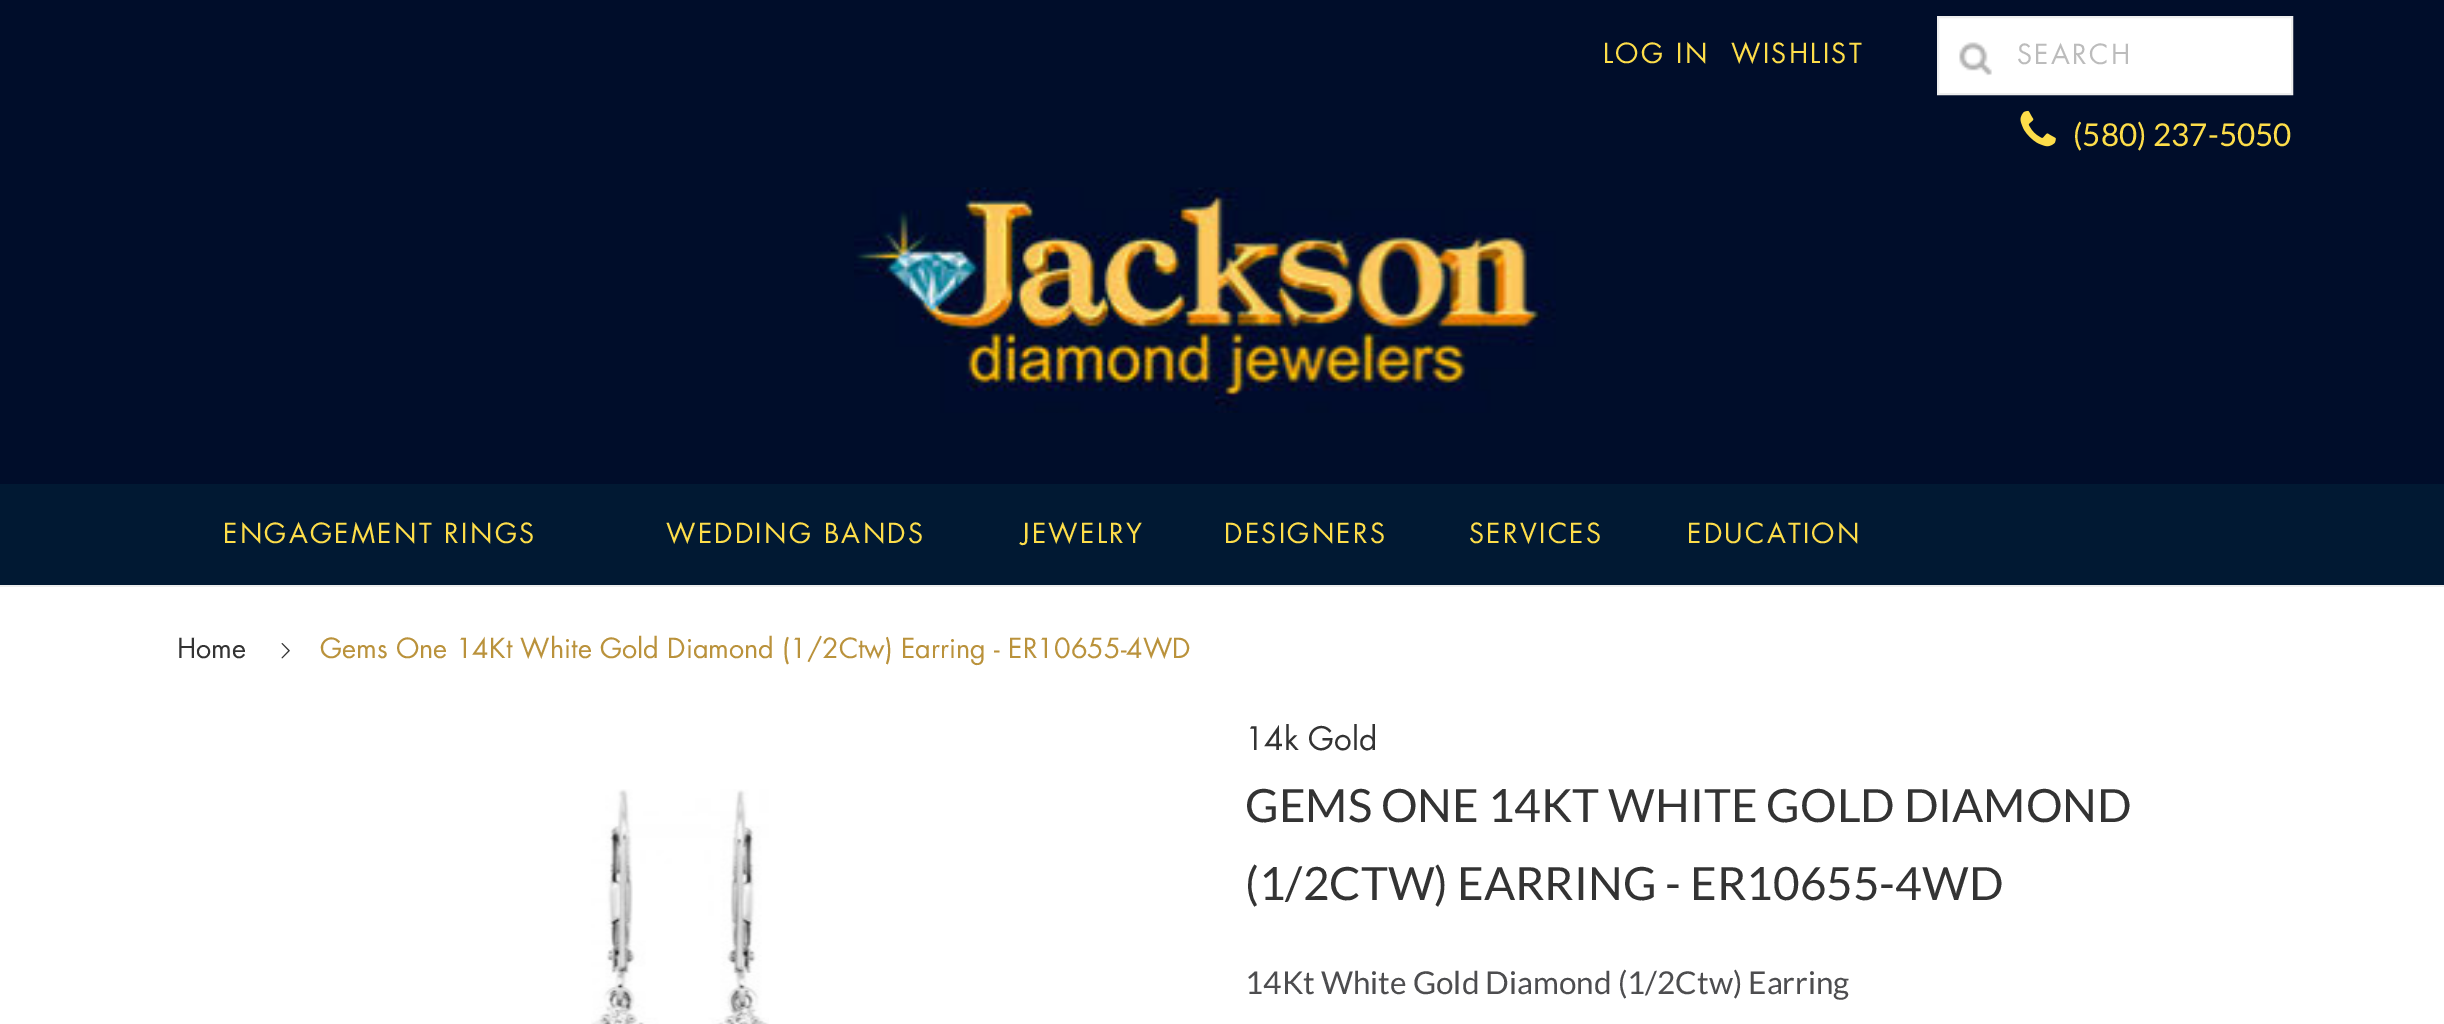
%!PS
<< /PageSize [2444 1024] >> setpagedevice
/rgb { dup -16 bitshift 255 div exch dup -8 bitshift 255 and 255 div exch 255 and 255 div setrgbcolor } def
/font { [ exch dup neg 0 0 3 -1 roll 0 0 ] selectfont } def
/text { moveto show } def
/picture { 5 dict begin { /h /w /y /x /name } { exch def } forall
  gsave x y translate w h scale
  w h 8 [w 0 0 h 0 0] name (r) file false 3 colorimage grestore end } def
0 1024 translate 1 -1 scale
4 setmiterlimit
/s1 { /Lato-Regular 31.5 font 16#FDDD4A rgb } def
/s2 { /Futura-Regular 27 font 16#333333 rgb } def
/s3 { /Futura-Regular 27 font 16#BA923B rgb } def
/s4 { /Futura-Regular 31.5 font 16#333333 rgb } def
/s5 { /Lato-Regular 45.9 font 16#333333 rgb } def
/s6 { /Lato-Regular 31.5 font 16#4D4D4F rgb } def
16#FFFFFF rgb
0 0 2444 1024 rectfill
16#000D2A rgb
0 0 2444 484 rectfill
/Futura-Regular 27 font
16#FDDD4A rgb
1603 63 moveto 2.25 0 (LOG IN) ashow
1731 63 moveto 2.25 0 (WISHLIST) ashow
16#FFFFFF rgb
1939 18 352 75 rectfill
(pic1.raw) 1959 42 33 34 picture
16#EEEEEE rgb
2 setlinewidth
1938 17 354 77 rectstroke
16#BCBCBC rgb
2017 64 moveto 2.25 0 (SEARCH) ashow
(pic2.raw) 2020 110 36 37 picture
s1
(\(580\) 237-5050) 2073 146 text
(pic3.raw) 854 187 702 226 picture
16#011933 rgb
0 484 2444 101 rectfill
16#EEEEEE rgb
0 585 2444 2 rectfill
/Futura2-Regular 27 font
16#FDDD4A rgb
223 543 moveto 2.25 0 (ENGAGEMENT RINGS) ashow
666 543 moveto 2.25 0 (WEDDING BANDS) ashow
1021 543 moveto 2.25 0 (JEWELRY) ashow
1224 543 moveto 2.25 0 (DESIGNERS) ashow
1469 543 moveto 2.25 0 (SERVICES) ashow
1687 543 moveto 2.25 0 (EDUCATION) ashow
s2
(Home) 177 658 text
(pic4.raw) 281 643 9 16 picture
s3
(Gems One 14Kt White Gold Diamond \(1/2Ctw\) Earring - ER10655-4WD) 320 658 text
(pic5.raw) 591 789 178 235 picture
s4
(14k Gold) 1245 750 text
s5
(GEMS ONE 14KT WHITE GOLD DIAMOND) 1245 822 text
(\(1/2CTW\) EARRING - ER10655-4WD) 1245 900 text
s6
(14Kt White Gold Diamond \(1/2Ctw\) Earring) 1245 994 text
showpage
